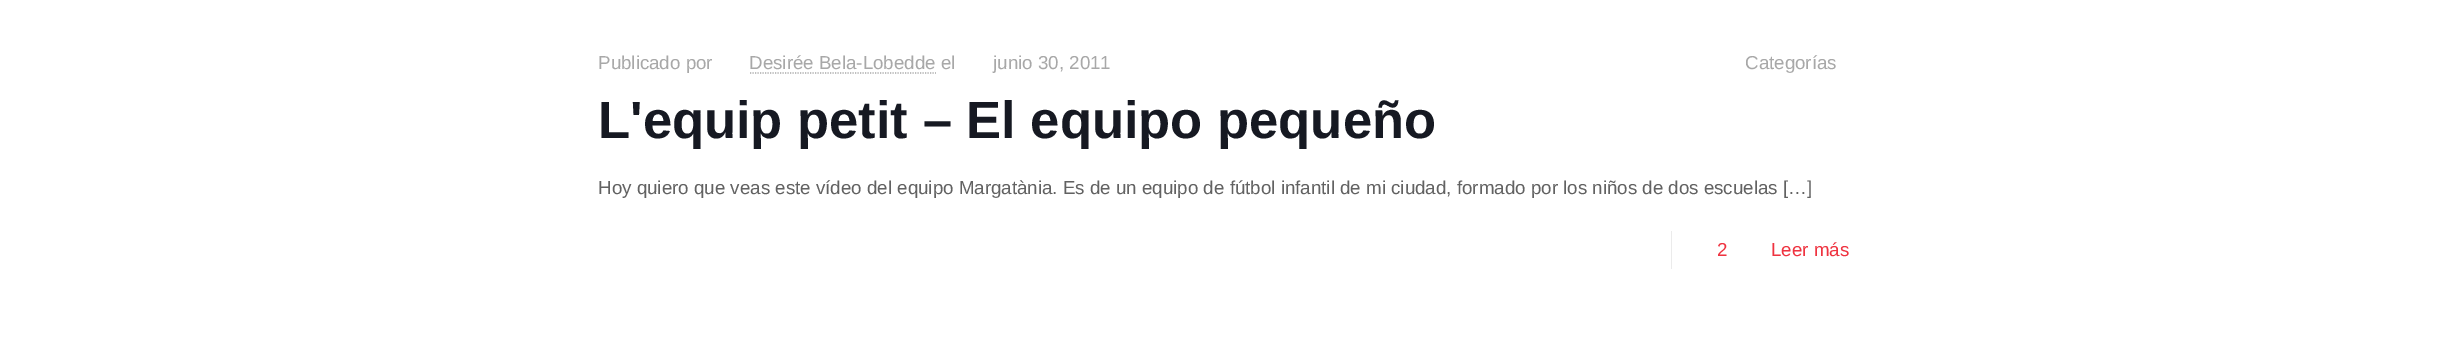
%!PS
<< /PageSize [2441 351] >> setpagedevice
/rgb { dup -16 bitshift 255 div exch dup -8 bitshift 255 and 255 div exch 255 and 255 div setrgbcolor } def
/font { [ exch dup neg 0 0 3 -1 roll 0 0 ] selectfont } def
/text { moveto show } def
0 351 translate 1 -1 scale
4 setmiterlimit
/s1 { /LiberationSans-Regular 18.75 font 16#A8A8A8 rgb } def
/s2 { /LiberationSans-Bold 52.5 font 16#161922 rgb } def
/s3 { /LiberationSans-Regular 18.75 font 16#626262 rgb } def
/s4 { /LiberationSans-Regular 18.75 font 16#EF3340 rgb } def
16#FFFFFF rgb
0 0 2441 351 rectfill
s1
(Publicado por) 598 69 text
(Desirée Bela-Lobedde el) 749 69 text
1.2 setlinewidth
[1.25 1.25] 0 setdash
750 73 moveto 936 73 lineto stroke
(junio 30, 2011) 993 69 text
(Categorías) 1745 69 text
s2
(L'equip petit – El equipo pequeño) 598 138 text
s3
(Hoy quiero que veas este vídeo del equipo Margatània. Es de un equipo de fútbol infantil de mi ciudad, formado por los niños de dos escuelas […]) 598 194 text
16#EBEBEB rgb
1671 231 1 38 rectfill
s4
(2) 1717 256 text
(Leer más) 1771 256 text
showpage
